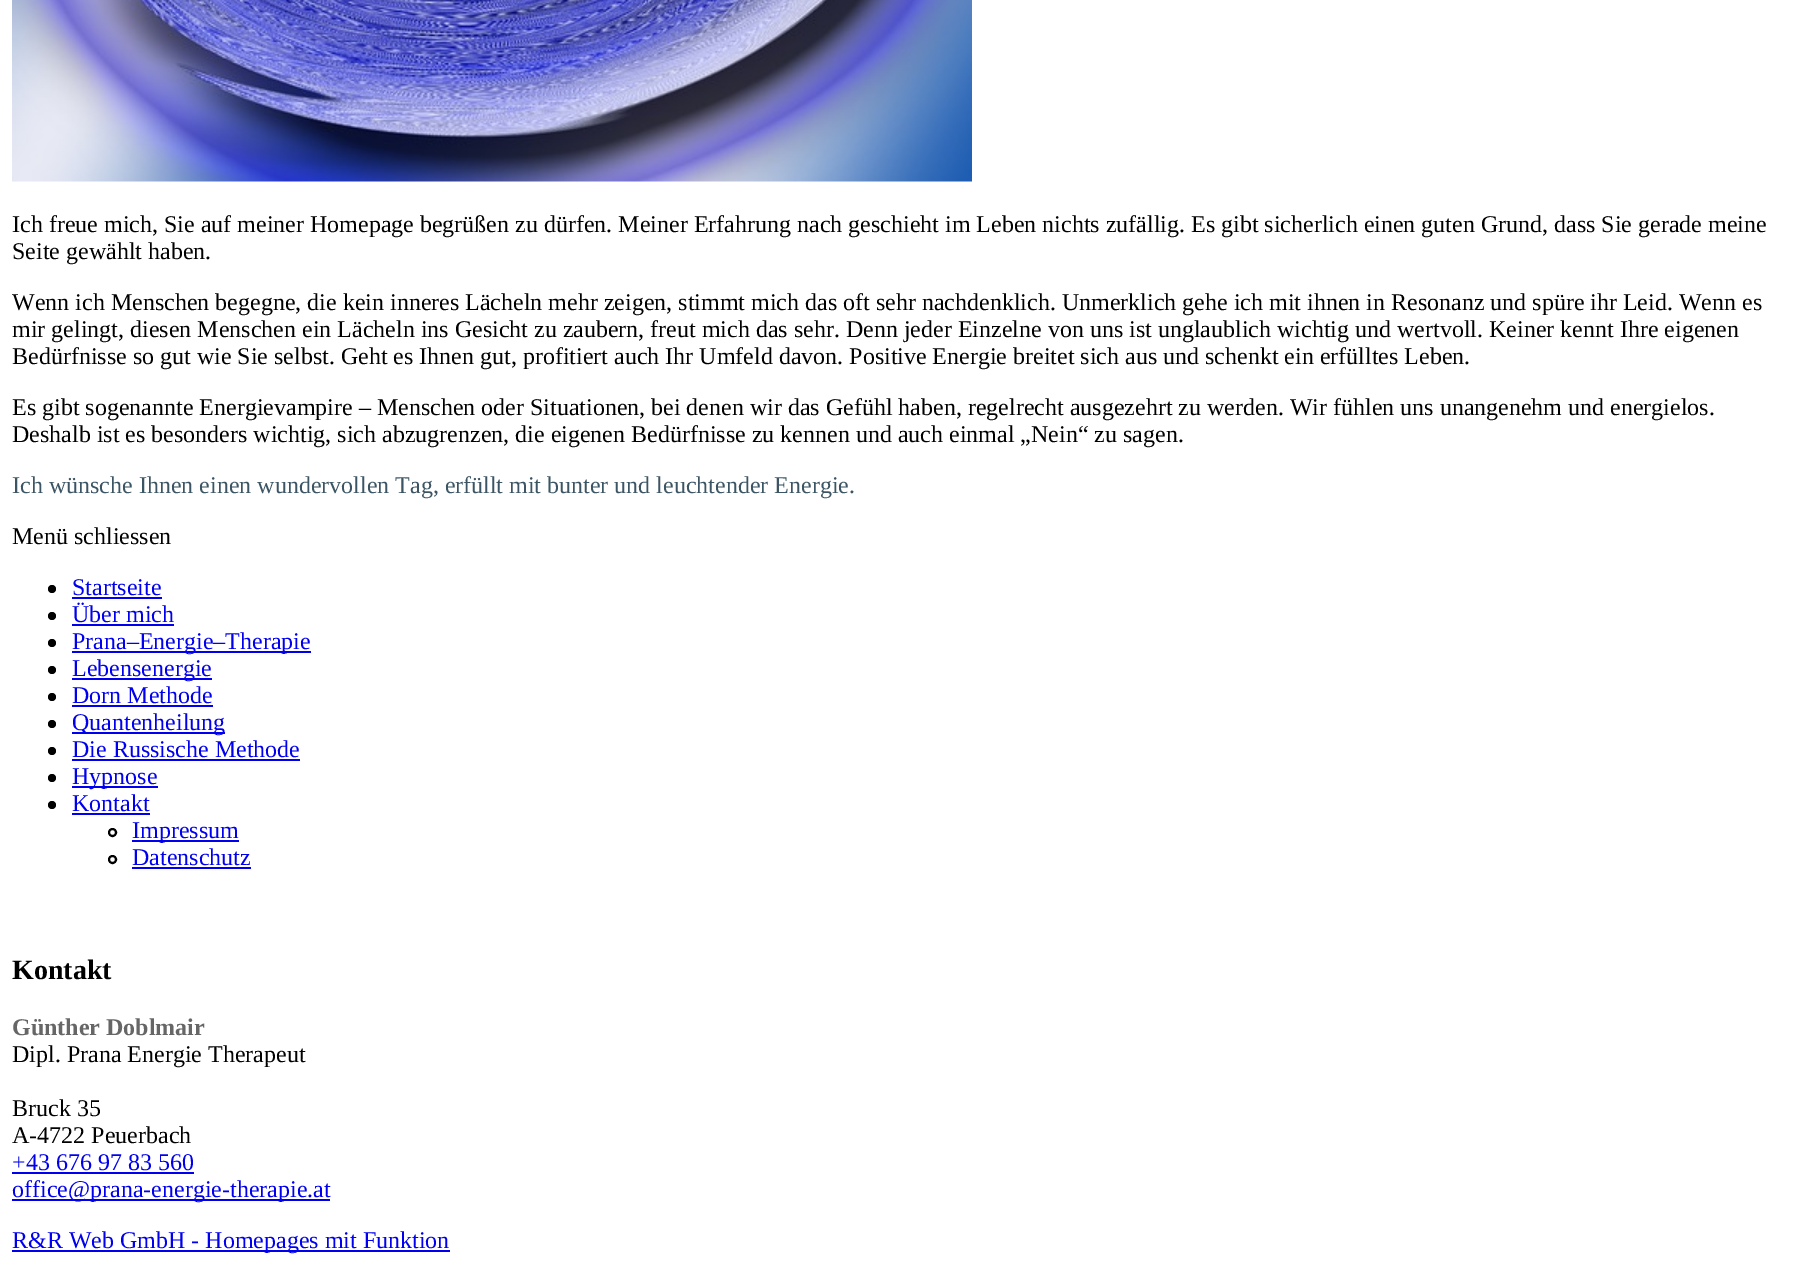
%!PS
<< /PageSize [1804 1262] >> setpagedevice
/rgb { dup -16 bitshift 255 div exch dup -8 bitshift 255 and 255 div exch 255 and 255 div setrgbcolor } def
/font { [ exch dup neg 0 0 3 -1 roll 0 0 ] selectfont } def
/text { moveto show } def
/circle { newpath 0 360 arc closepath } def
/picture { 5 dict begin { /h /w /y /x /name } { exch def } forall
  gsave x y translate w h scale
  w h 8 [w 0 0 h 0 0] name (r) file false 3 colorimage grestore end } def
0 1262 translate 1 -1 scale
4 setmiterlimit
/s1 { /LiberationSerif-Regular 24 font 16#000000 rgb } def
/s2 { /LiberationSerif-Regular 24 font 16#3B5564 rgb } def
/s3 { /LiberationSerif-Regular 24 font 16#0000EE rgb } def
/s4 { /LiberationSerif-Bold 28 font 16#000000 rgb } def
/s5 { /LiberationSerif-Bold 24 font 16#666666 rgb } def
16#FFFFFF rgb
0 0 1804 1262 rectfill
(pic1.raw) 12 0 960 182 picture
s1
(Ich freue mich, Sie auf meiner Homepage begrüßen zu dürfen. Meiner Erfahrung nach geschieht im Leben nichts zufällig. Es gibt sicherlich einen guten Grund, dass Sie gerade meine) 12 232 text
(Seite gewählt haben.) 12 259 text
(Wenn ich Menschen begegne, die kein inneres Lächeln mehr zeigen, stimmt mich das oft sehr nachdenklich. Unmerklich gehe ich mit ihnen in Resonanz und spüre ihr Leid. Wenn es) 12 310 text
(mir gelingt, diesen Menschen ein Lächeln ins Gesicht zu zaubern, freut mich das sehr. Denn jeder Einzelne von uns ist unglaublich wichtig und wertvoll. Keiner kennt Ihre eigenen) 12 337 text
(Bedürfnisse so gut wie Sie selbst. Geht es Ihnen gut, profitiert auch Ihr Umfeld davon. Positive Energie breitet sich aus und schenkt ein erfülltes Leben.) 12 364 text
(Es gibt sogenannte Energievampire – Menschen oder Situationen, bei denen wir das Gefühl haben, regelrecht ausgezehrt zu werden. Wir fühlen uns unangenehm und energielos.) 12 415 text
(Deshalb ist es besonders wichtig, sich abzugrenzen, die eigenen Bedürfnisse zu kennen und auch einmal „Nein“ zu sagen.) 12 442 text
s2
(Ich wünsche Ihnen einen wundervollen Tag, erfüllt mit bunter und leuchtender Energie.) 12 493 text
s1
(Menü schliessen) 12 544 text
52 589 4 circle fill
s3
(Startseite) 72 595 text
72 597 90 2 rectfill
16#000000 rgb
52 616 4 circle fill
s3
(Über mich) 72 622 text
72 624 102 2 rectfill
16#000000 rgb
52 643 4 circle fill
16#0000EE rgb
72 651 239 2 rectfill
(Prana–Energie–Therapie) 72 649 text
16#000000 rgb
52 670 4 circle fill
16#0000EE rgb
72 678 140 2 rectfill
(Lebensenergie) 72 676 text
16#000000 rgb
52 697 4 circle fill
s3
(Dorn Methode) 72 703 text
72 705 141 2 rectfill
16#000000 rgb
52 724 4 circle fill
16#0000EE rgb
72 732 153 2 rectfill
(Quantenheilung) 72 730 text
16#000000 rgb
52 751 4 circle fill
s3
(Die Russische Methode) 72 757 text
72 759 228 2 rectfill
16#000000 rgb
52 778 4 circle fill
16#0000EE rgb
72 786 86 2 rectfill
(Hypnose) 72 784 text
16#000000 rgb
52 805 4 circle fill
s3
(Kontakt) 72 811 text
72 813 78 2 rectfill
16#000000 rgb
2 setlinewidth
112.5 832.5 3.5 circle stroke
16#0000EE rgb
132 840 107 2 rectfill
(Impressum) 132 838 text
16#000000 rgb
112.5 859.5 3.5 circle stroke
s3
(Datenschutz) 132 865 text
132 867 119 2 rectfill
s4
(Kontakt) 12 979 text
s5
(Günther Doblmair) 12 1035 text
s1
(Dipl. Prana Energie Therapeut) 12 1062 text
(Bruck 35) 12 1116 text
(A-4722 Peuerbach) 12 1143 text
s3
(+43 676 97 83 560) 12 1170 text
12 1172 182 2 rectfill
12 1199 318 2 rectfill
(office@prana-energie-therapie.at) 12 1197 text
12 1250 438 2 rectfill
(R&R Web GmbH - Homepages mit Funktion) 12 1248 text
showpage
